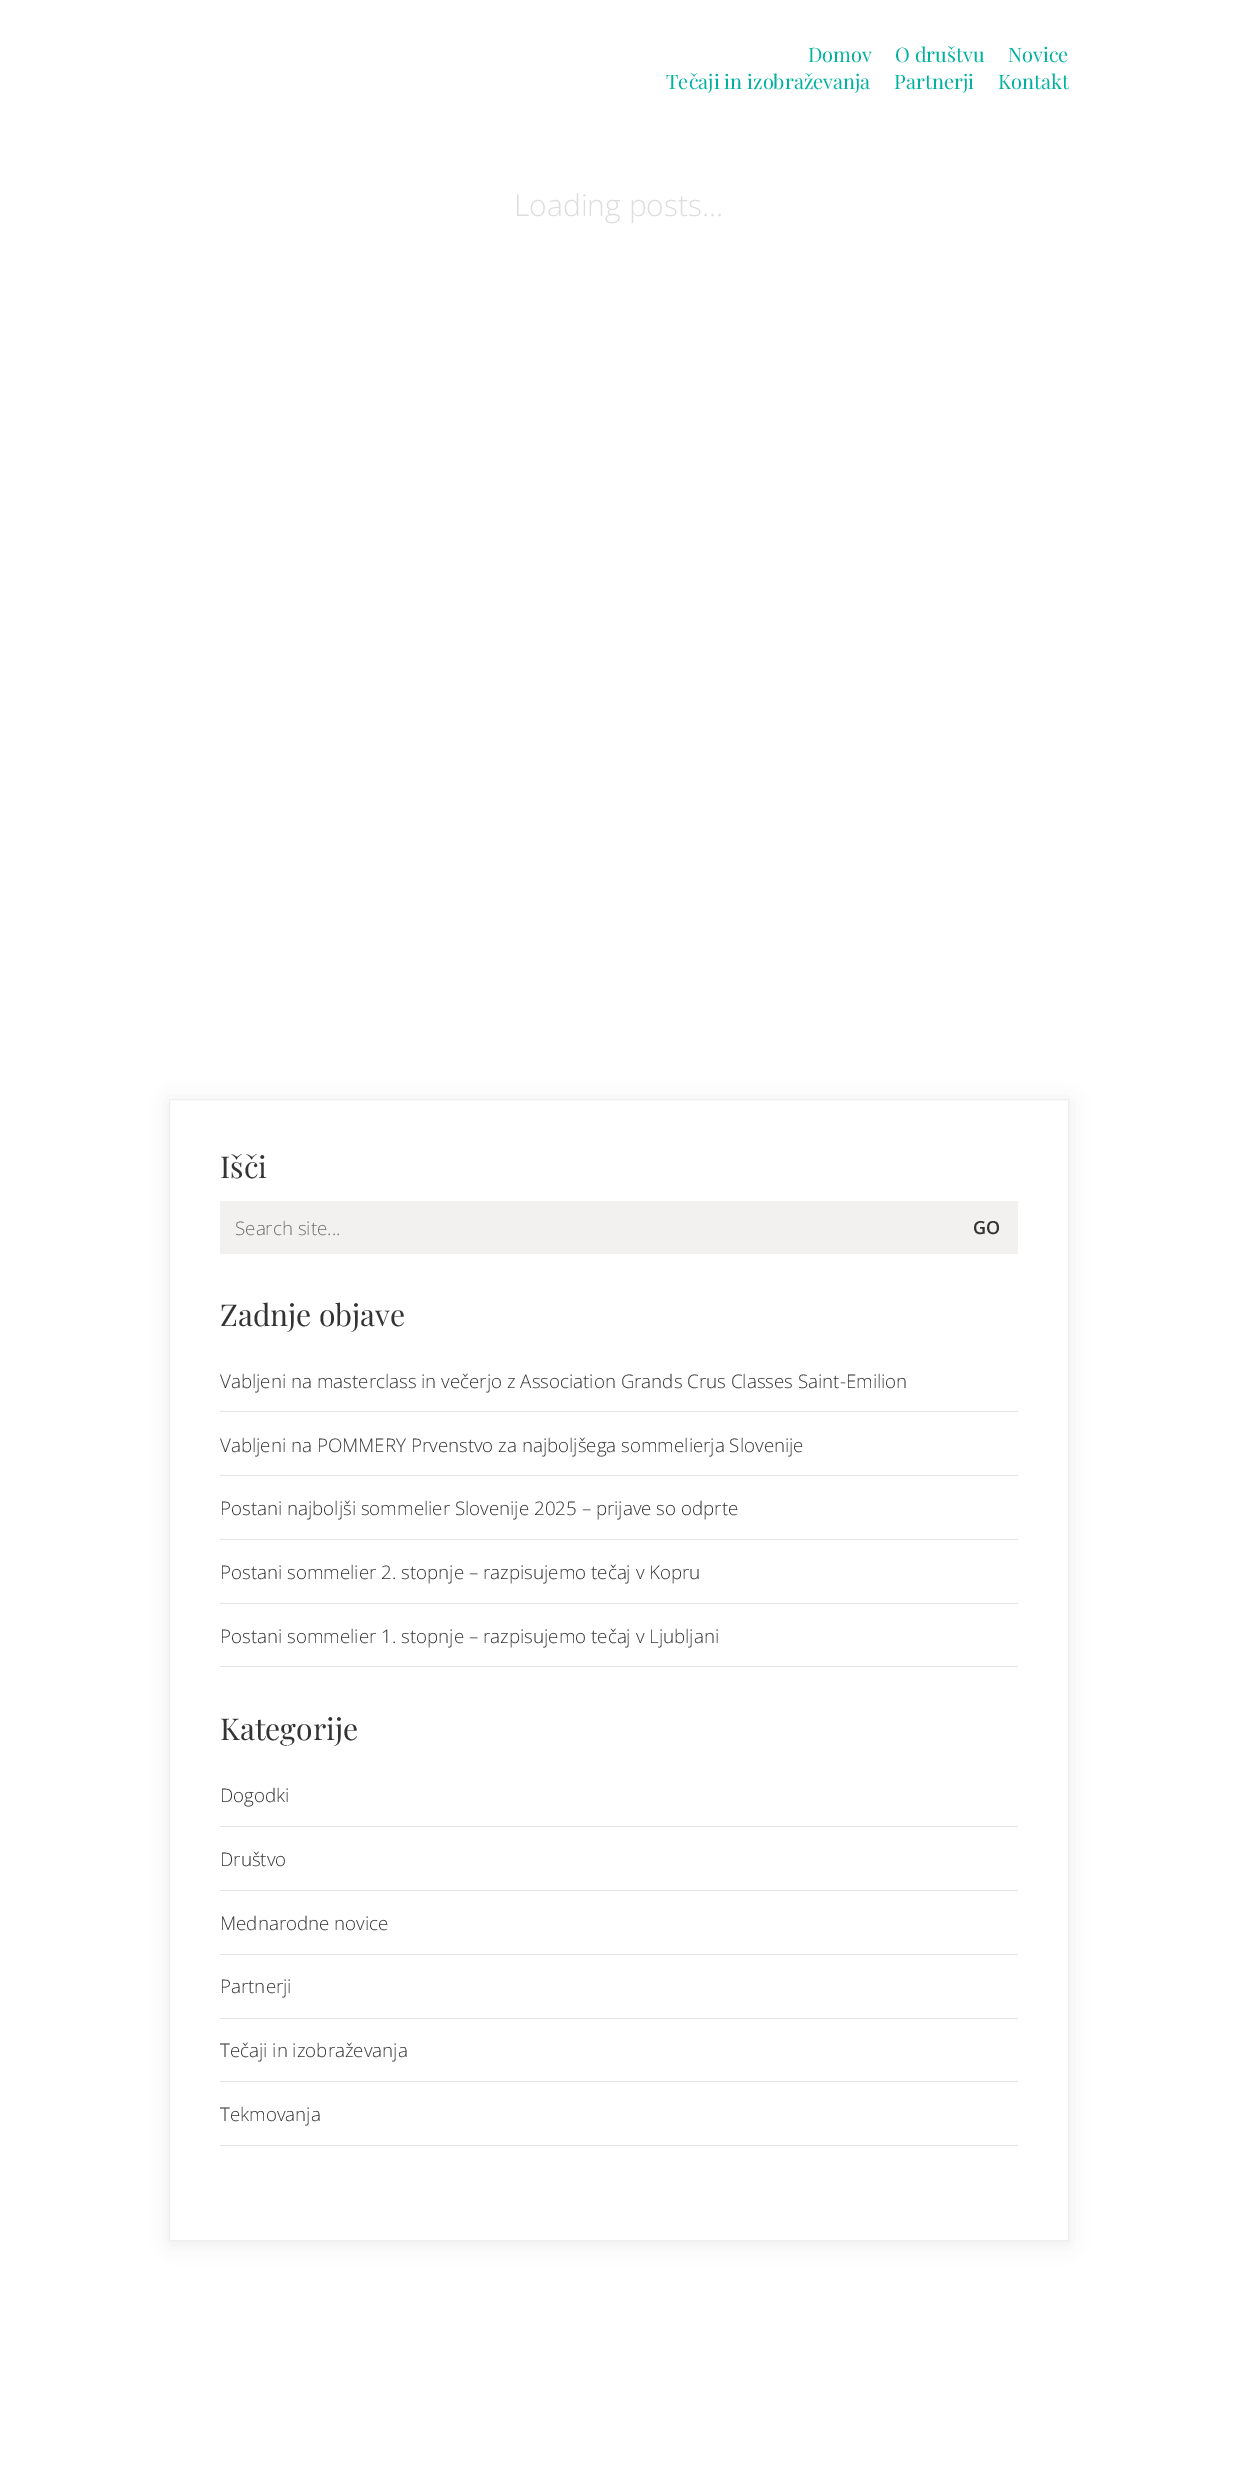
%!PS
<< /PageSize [1237 2489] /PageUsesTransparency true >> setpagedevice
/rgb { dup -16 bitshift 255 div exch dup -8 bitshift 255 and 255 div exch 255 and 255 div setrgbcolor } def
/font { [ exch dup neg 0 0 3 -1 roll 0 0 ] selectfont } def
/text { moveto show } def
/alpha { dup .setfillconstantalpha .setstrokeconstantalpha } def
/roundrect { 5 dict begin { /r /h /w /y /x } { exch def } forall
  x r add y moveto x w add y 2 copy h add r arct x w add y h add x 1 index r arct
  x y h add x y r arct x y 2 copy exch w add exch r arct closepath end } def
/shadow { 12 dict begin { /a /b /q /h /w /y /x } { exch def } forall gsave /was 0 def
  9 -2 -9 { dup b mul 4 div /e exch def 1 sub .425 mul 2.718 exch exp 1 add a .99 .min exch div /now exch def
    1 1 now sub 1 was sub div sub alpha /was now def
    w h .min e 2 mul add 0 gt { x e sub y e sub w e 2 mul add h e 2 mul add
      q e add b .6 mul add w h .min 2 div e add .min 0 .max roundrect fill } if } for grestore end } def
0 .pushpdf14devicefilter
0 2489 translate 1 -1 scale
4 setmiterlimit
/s1 { /PlayfairDisplay-Regular 20 font 16#00B19E rgb } def
/s2 { /OpenSans-Light 30 font 16#DDDDDD rgb } def
/s3 { /PlayfairDisplay-Regular 30 font 16#333333 rgb } def
/s4 { /OpenSans-Light 18.75 font 16#6D6D6D rgb } def
/s5 { /OpenSans-SemiBold 18 font 16#333333 rgb } def
/s6 { /OpenSans-Light 18.75 font 16#333333 rgb } def
16#FFFFFF rgb
0 0 1237 2489 rectfill
s1
(Domov) 808 62 text
(O društvu) 895 62 text
(Novice) 1008 62 text
(Tečaji in izobraževanja) 666 89 text
(Partnerji) 894 89 text
(Kontakt) 998 89 text
s2
(Loading posts...) 514 216 text
16#000000 rgb
169 1101 900 1143 0 9.5 0.07 shadow
16#FFFFFF rgb
169.5 1099.5 moveto 1068.5 1099.5 lineto 1068.5 2240.5 lineto 169.5 2240.5 lineto closepath gsave fill grestore
16#EEEEEE rgb
stroke
s3
(Išči) 220 1178 text
16#F3F1EF rgb
220 1201 798 53 rectfill
s4
(Search site...) 235 1235 text
s5
(GO) 973 1234 text
s3
(Zadnje objave) 220 1326 text
16#E4E4E4 rgb
220 1411 798 1 rectfill
s6
(Vabljeni na masterclass in večerjo z Association Grands Crus Classes Saint-Emilion) 220 1388 text
16#E4E4E4 rgb
220 1475 798 1 rectfill
s6
(Vabljeni na POMMERY Prvenstvo za najboljšega sommelierja Slovenije) 220 1452 text
16#E4E4E4 rgb
220 1539 798 1 rectfill
s6
(Postani najboljši sommelier Slovenije 2025 – prijave so odprte) 220 1515 text
16#E4E4E4 rgb
220 1603 798 1 rectfill
s6
(Postani sommelier 2. stopnje – razpisujemo tečaj v Kopru) 220 1579 text
16#E4E4E4 rgb
220 1666 798 1 rectfill
s6
(Postani sommelier 1. stopnje – razpisujemo tečaj v Ljubljani) 220 1643 text
s3
(Kategorije) 220 1740 text
16#E4E4E4 rgb
220 1826 798 1 rectfill
s6
(Dogodki) 220 1802 text
16#E4E4E4 rgb
220 1890 798 1 rectfill
s6
(Društvo) 220 1866 text
16#E4E4E4 rgb
220 1954 798 1 rectfill
s6
(Mednarodne novice) 220 1930 text
16#E4E4E4 rgb
220 2018 798 1 rectfill
s6
(Partnerji) 220 1993 text
16#E4E4E4 rgb
220 2081 798 1 rectfill
s6
(Tečaji in izobraževanja) 220 2057 text
16#E4E4E4 rgb
220 2145 798 1 rectfill
s6
(Tekmovanja) 220 2121 text
.poppdf14devicefilter showpage
